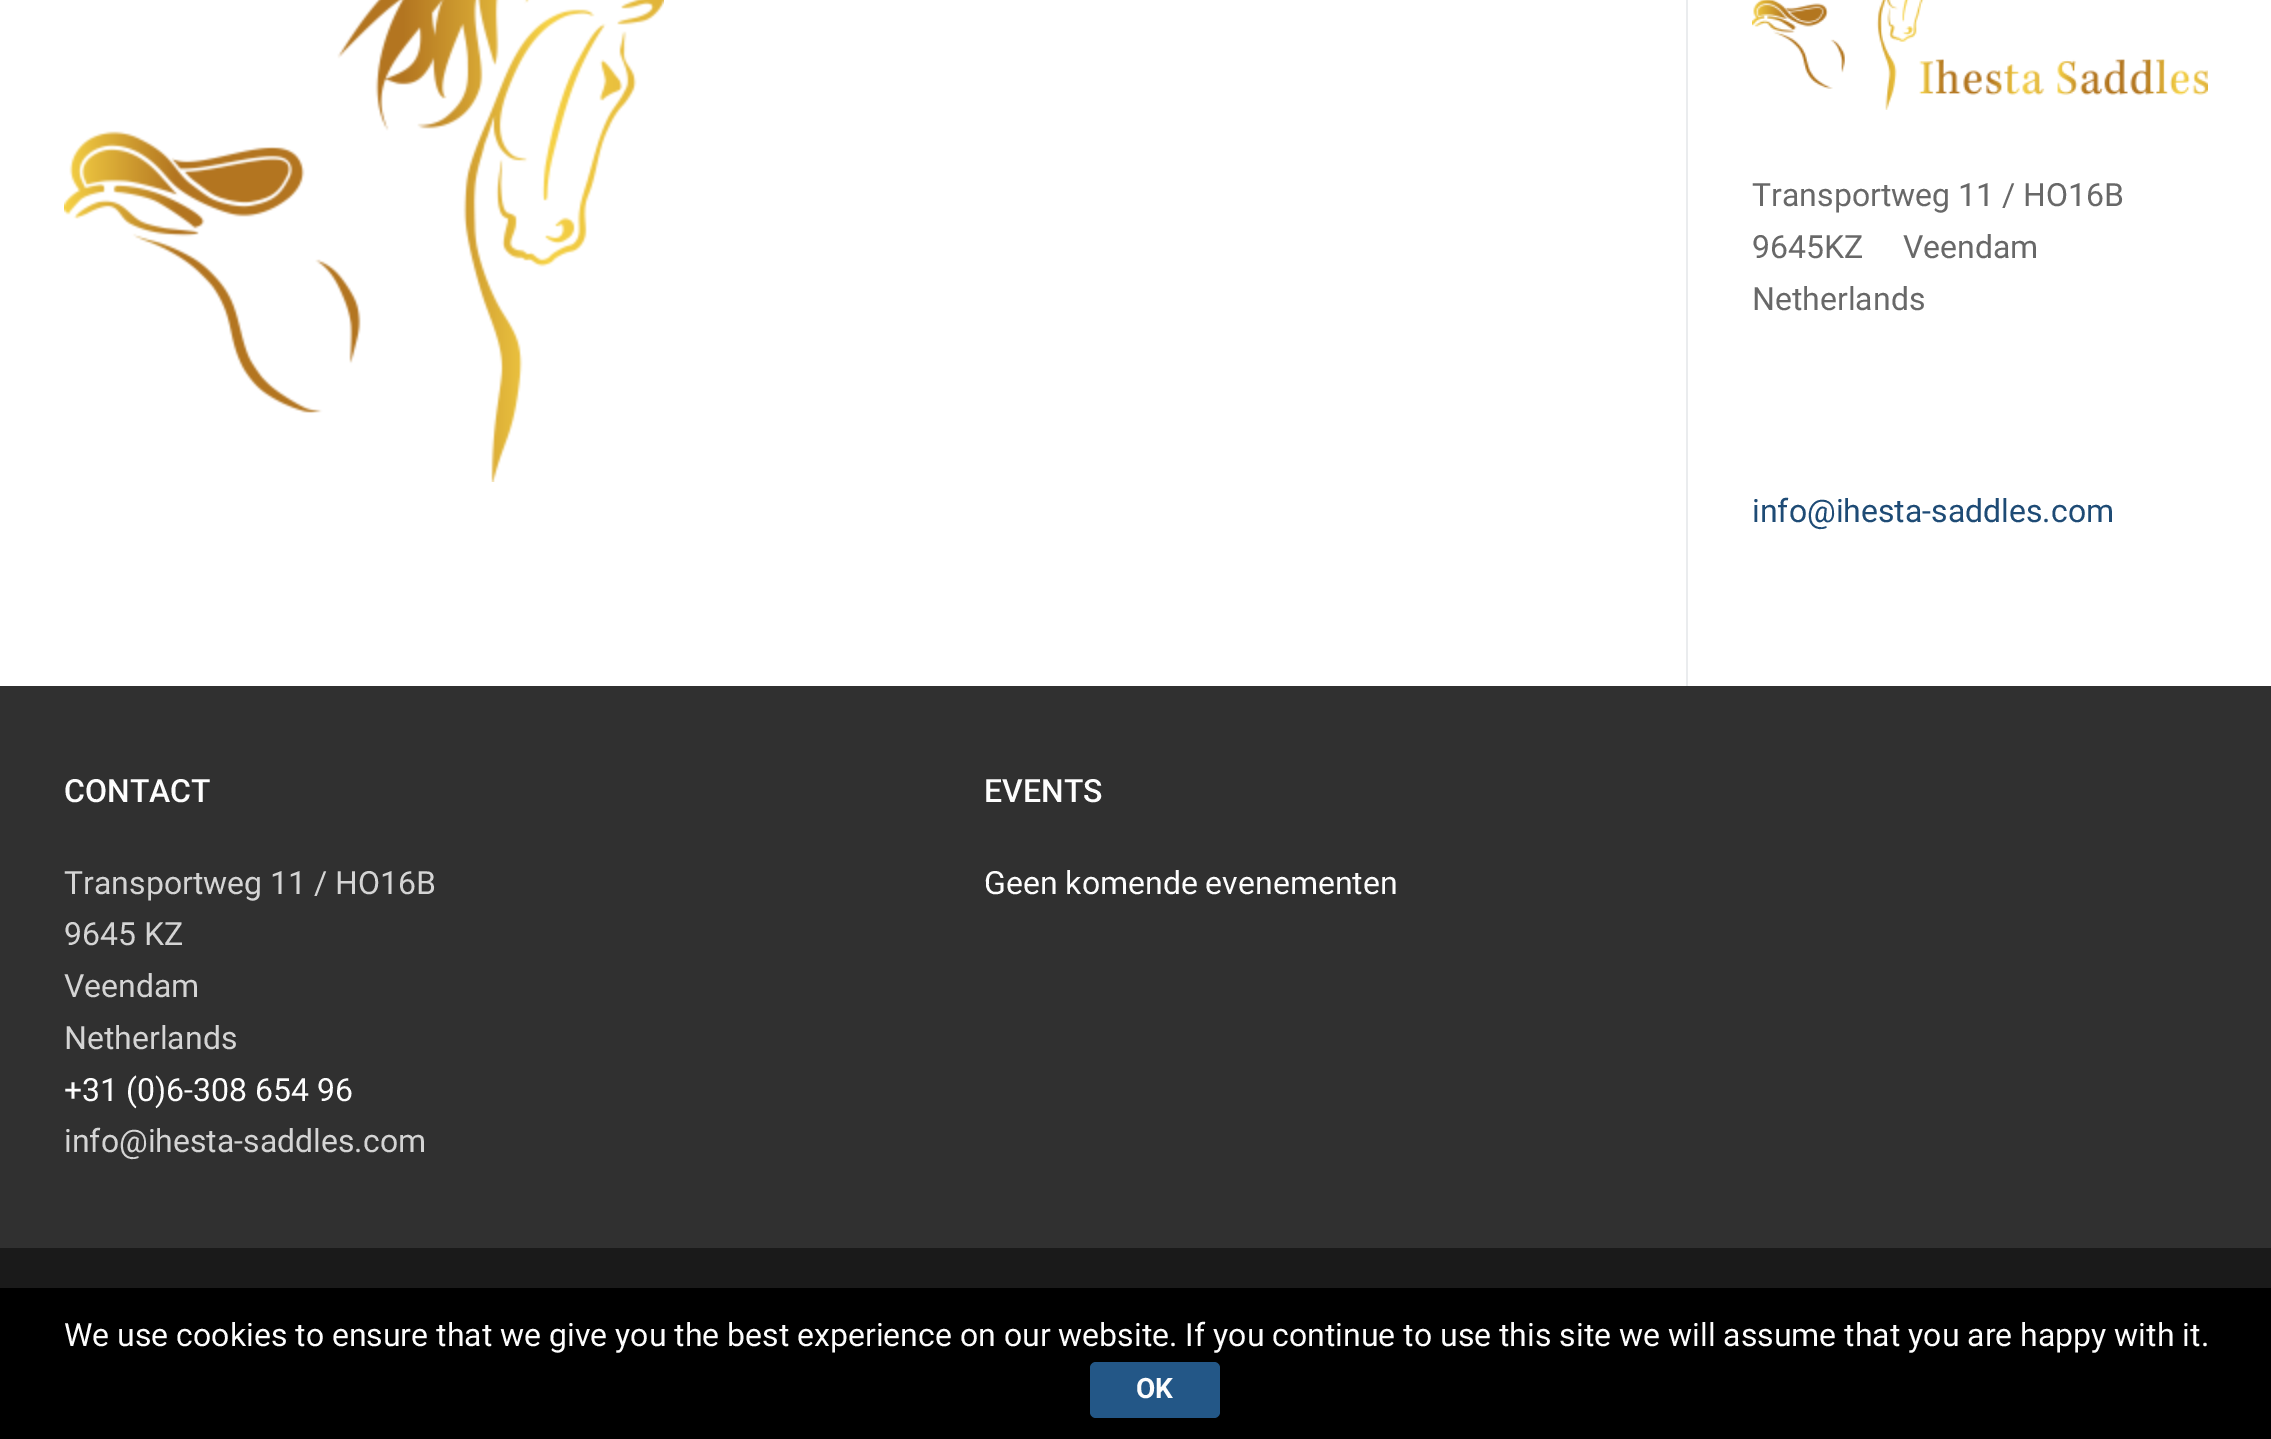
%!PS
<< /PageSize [2271 1439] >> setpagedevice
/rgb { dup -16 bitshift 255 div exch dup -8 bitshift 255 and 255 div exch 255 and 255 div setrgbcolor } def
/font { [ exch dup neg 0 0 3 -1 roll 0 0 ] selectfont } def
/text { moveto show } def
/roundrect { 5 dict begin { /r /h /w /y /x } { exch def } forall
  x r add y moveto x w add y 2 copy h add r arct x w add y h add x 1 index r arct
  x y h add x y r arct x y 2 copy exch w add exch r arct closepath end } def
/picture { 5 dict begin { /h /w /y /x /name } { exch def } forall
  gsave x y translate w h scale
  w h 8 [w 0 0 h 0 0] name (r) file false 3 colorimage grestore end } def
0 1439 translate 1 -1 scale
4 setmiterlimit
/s1 { /Roboto-Regular 32 font 16#686868 rgb } def
/s2 { /Roboto-Regular 32 font 16#1E4B75 rgb } def
/s3 { /Roboto-Medium 32 font 16#FDFDFD rgb } def
/s4 { /Roboto-Regular 32 font 16#D4D4D4 rgb } def
/s5 { /Roboto-Regular 32 font 16#FDFDFD rgb } def
/s6 { /Roboto-Bold 28 font 16#FDFDFD rgb } def
16#FFFFFF rgb
0 0 2271 1439 rectfill
16#EAECEE rgb
1686 0 2 686 rectfill
(pic1.raw) 64 0 600 482 picture
(pic2.raw) 1752 0 456 110 picture
s1
(Transportweg 11 / HO16B) 1752 206 text
(9645KZ     Veendam) 1752 258 text
(Netherlands) 1752 310 text
s2
(info@ihesta-saddles.com) 1752 522 text
16#303030 rgb
0 686 2271 562 rectfill
s3
(CONTACT) 64 802 text
s4
(Transportweg 11 / HO16B) 64 894 text
(9645 KZ) 64 945 text
(Veendam) 64 997 text
(Netherlands) 64 1049 text
s5
(+31 \(0\)6-308 654 96) 64 1101 text
s4
(info@ihesta-saddles.com) 64 1152 text
s3
(EVENTS) 984 802 text
s5
(Geen komende evenementen) 984 894 text
16#1A1A1A rgb
0 1248 2271 40 rectfill
16#000000 rgb
0 1288 2271 151 rectfill
s5
(We use cookies to ensure that we give you the best experience on our website. If you continue to use this site we will assume that you are happy with it.) 64 1346 text
16#235787 rgb
1090 1362 130 56 6 roundrect fill
s6
(OK) 1136 1398 text
showpage
